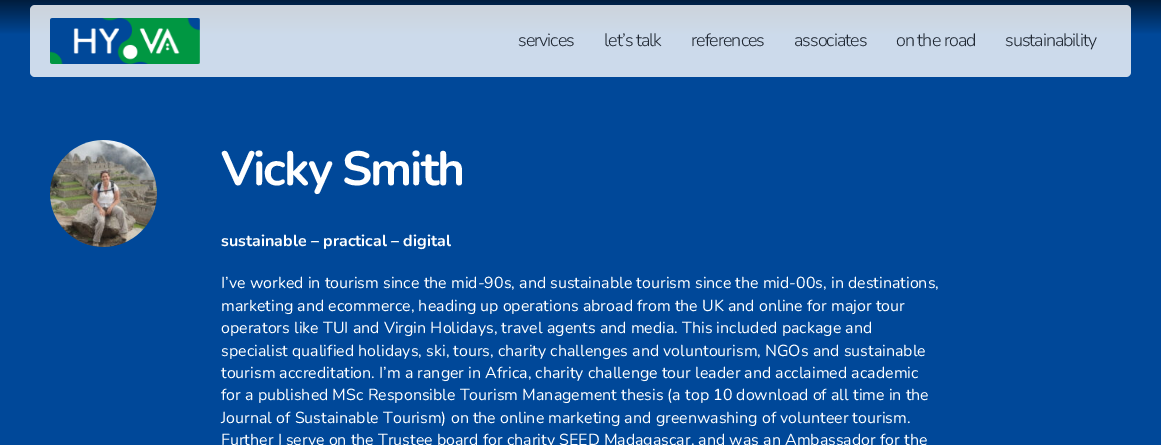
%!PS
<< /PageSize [1161 445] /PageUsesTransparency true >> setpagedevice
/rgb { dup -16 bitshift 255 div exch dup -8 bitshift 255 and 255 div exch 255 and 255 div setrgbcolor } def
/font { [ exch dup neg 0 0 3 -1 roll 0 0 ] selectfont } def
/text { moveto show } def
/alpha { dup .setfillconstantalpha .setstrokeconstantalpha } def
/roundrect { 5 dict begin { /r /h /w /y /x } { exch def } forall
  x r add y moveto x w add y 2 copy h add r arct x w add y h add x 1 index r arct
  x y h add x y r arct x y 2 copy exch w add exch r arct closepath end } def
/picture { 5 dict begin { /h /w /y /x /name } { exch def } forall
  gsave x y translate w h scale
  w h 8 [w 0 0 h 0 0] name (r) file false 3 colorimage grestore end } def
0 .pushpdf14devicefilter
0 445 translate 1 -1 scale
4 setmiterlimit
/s1 { /Nunito-Bold 16 font 16#FFFFFF rgb } def
/s2 { /Nunito-Regular 16 font 16#FFFFFF rgb } def
16#004899 rgb
0 0 1161 445 rectfill
gsave 0 0 moveto 1161 0 lineto 1161 34 lineto 0 34 lineto closepath clip newpath
<< /ShadingType 2 /ColorSpace /DeviceRGB /Coords [581 0 581 70] /Extend [true true] /Function << /FunctionType 3 /Domain [0 1] /Functions [<< /FunctionType 2 /Domain [0 1] /C0 [0 0.114 0.239] /C1 [0 0.282 0.6] /N 1 >> << /FunctionType 2 /Domain [0 1] /C0 [0 0.282 0.6] /C1 [0 0.282 0.6] /N 1 >>] /Bounds [0.5] /Encode [0 1 0 1] >> >> shfill grestore
0.8 alpha
16#FFFFFF rgb
30 5 1101 72 5 roundrect fill
1 alpha
(pic1.raw) 50 18 150 46 picture
/Nunito-Light 18 font
16#212934 rgb
518 46 moveto -1 0 (services) ashow
604 46 moveto -1 0 (let’s talk) ashow
691 46 moveto -1 0 (references) ashow
794 46 moveto -1 0 (associates) ashow
896 46 moveto -1 0 (on the road) ashow
1005 46 moveto -1 0 (sustainability) ashow
(pic2.raw) 50 140 107 107 picture
/Nunito-Bold 48 font
16#FFFFFF rgb
221 185 moveto -2 0 (Vicky Smith) ashow
s1
(sustainable – practical – digital) 221 246 text
s2
(I’ve worked in tourism since the mid-90s, and sustainable tourism since the mid-00s, in destinations,) 221 288 text
(marketing and ecommerce, heading up operations abroad from the UK and online for major tour) 221 311 text
(operators like TUI and Virgin Holidays, travel agents and media. This included package and) 221 333 text
(specialist qualified holidays, ski, tours, charity challenges and voluntourism, NGOs and sustainable) 221 356 text
(tourism accreditation. I’m a ranger in Africa, charity challenge tour leader and acclaimed academic) 221 378 text
(for a published MSc Responsible Tourism Management thesis \(a top 10 download of all time in the) 221 400 text
(Journal of Sustainable Tourism\) on the online marketing and greenwashing of volunteer tourism.) 221 423 text
(Further I serve on the Trustee board for charity SEED Madagascar, and was an Ambassador for the) 221 445 text
.poppdf14devicefilter showpage
